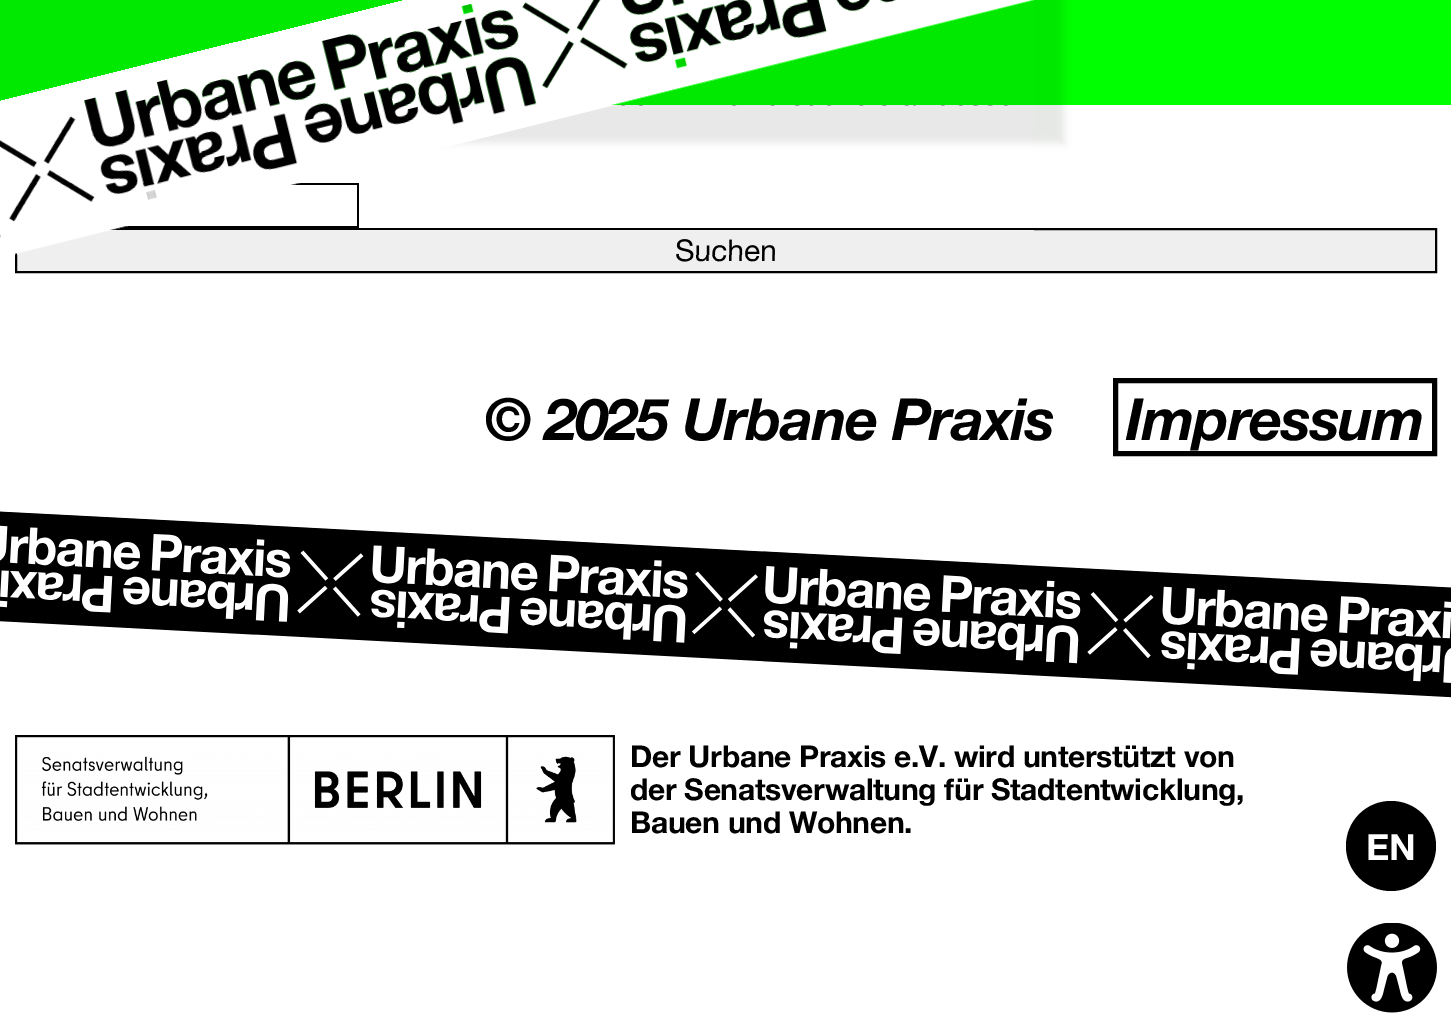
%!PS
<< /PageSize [1451 1027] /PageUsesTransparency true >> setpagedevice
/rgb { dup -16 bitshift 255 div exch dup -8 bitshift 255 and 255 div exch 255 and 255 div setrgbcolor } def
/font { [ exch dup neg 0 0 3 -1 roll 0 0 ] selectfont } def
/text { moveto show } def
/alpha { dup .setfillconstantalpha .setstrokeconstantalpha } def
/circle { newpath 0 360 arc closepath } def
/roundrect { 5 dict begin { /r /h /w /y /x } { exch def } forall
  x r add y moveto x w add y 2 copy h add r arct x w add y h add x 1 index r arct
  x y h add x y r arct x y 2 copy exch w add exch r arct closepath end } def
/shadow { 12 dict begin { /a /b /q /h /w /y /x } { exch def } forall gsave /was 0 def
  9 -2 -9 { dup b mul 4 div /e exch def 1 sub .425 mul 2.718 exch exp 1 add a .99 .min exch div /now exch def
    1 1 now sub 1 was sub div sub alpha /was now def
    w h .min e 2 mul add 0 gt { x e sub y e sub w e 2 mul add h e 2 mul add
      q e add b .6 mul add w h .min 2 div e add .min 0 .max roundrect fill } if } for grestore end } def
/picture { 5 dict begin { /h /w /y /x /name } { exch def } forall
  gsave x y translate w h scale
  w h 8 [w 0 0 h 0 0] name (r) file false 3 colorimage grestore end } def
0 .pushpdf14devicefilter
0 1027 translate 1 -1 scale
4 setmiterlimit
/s1 { /HelveticaNeue-Regular 30 font 16#000000 rgb } def
16#FFFFFF rgb
0 0 1451 1027 rectfill
16#00FF00 rgb
0 0 1451 105 rectfill
gsave
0 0 moveto 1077 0 lineto 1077 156 lineto 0 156 lineto closepath -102 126 moveto 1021.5 -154 lineto 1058.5 -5.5 lineto -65 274.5 lineto closepath eoclip newpath
16#0E160C rgb
-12 -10 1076 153 0 4 0.1 shadow
grestore
16#000000 rgb
2 setlinewidth
16 184 342 43 rectstroke
16#EFEFEF rgb
16 229 moveto 1436 229 lineto 1436 272 lineto 16 272 lineto closepath gsave fill grestore
16#000000 rgb
stroke
s1
(Suchen) 675 261 text
(pic1.raw) 0 0 1034 255 picture
/HelveticaNeue-BoldItalic 58 font
485 440 moveto -1.4 0 (© 2025 Urbane Praxis) ashow
5 setlinewidth
1115.5 380.5 319 73 rectstroke
1126 440 moveto -1.4 0 (Impressum) ashow
(pic2.raw) 0 511 1451 187 picture
(pic3.raw) 15 735 600 110 picture
/HelveticaNeue-Bold 30 font
630 767 moveto -0.3 0 (Der Urbane Praxis e.V. wird unterstützt von) ashow
630 800 moveto -0.3 0 (der Senatsverwaltung für Stadtentwicklung,) ashow
630 833 moveto -0.3 0 (Bauen und Wohnen.) ashow
1391 846 45 circle fill
/HelveticaNeue-Bold 36 font
16#FFFFFF rgb
1366 860 moveto -0.3 0 (EN) ashow
(pic4.raw) 1347 923 90 90 picture
.poppdf14devicefilter showpage
